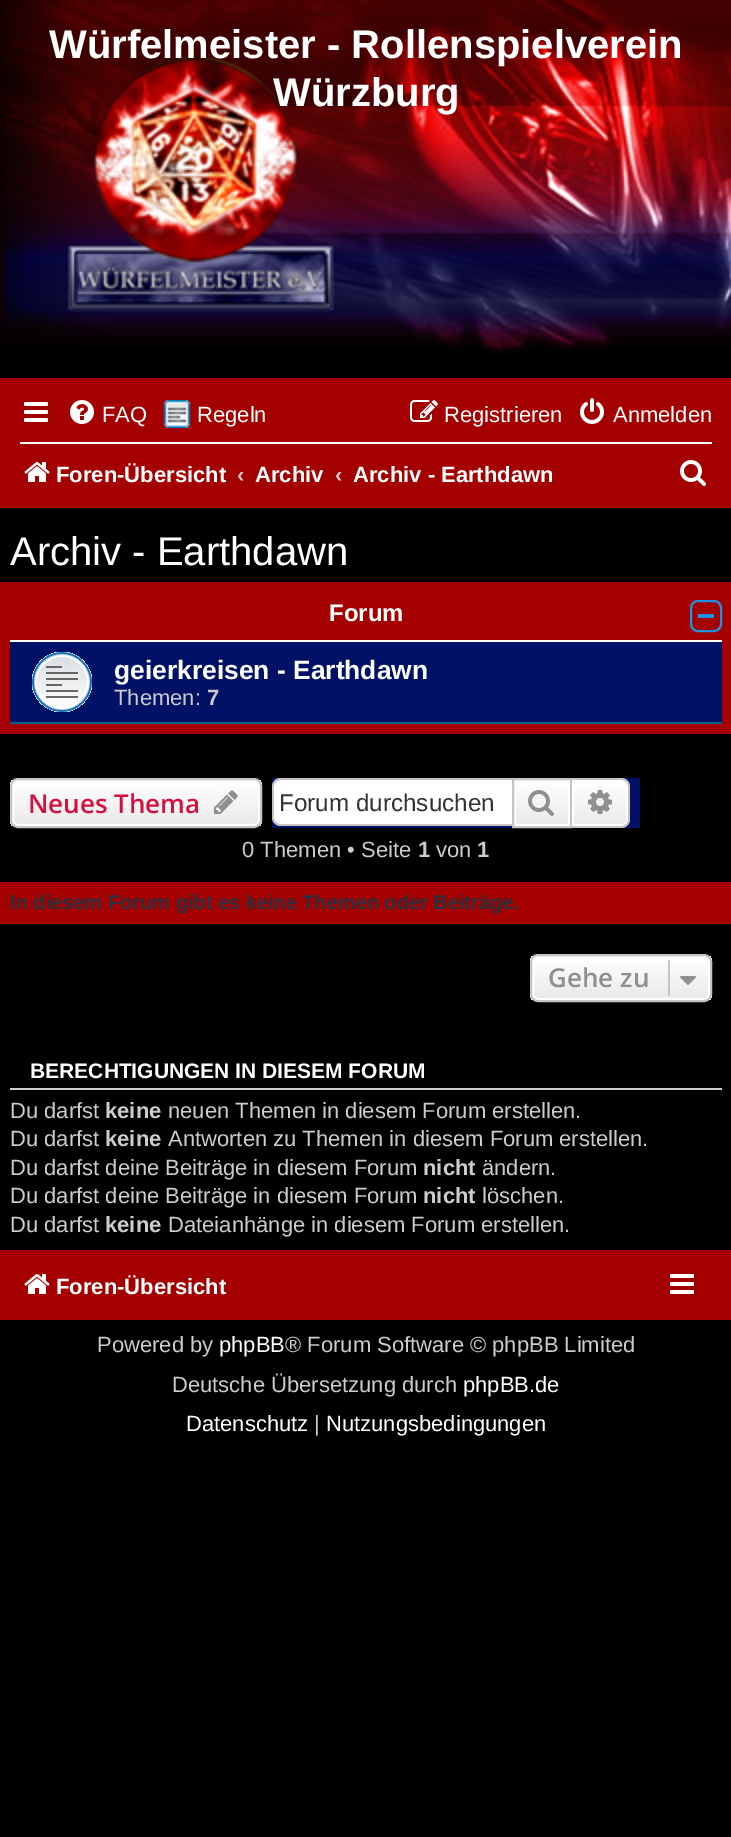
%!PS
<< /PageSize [731 1837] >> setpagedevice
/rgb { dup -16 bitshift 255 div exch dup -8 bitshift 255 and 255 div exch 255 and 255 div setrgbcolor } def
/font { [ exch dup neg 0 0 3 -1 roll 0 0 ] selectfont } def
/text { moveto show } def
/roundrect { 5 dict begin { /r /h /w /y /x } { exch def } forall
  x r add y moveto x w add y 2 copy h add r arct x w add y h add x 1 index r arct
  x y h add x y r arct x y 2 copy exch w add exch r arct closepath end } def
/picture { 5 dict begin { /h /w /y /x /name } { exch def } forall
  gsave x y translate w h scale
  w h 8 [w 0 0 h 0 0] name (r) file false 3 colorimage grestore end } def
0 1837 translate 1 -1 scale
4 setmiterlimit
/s1 { /LiberationSans-Bold 40 font 16#FFFFFF rgb } def
/s2 { /LiberationSans-Regular 22 font 16#FFFFFF rgb } def
/s3 { /LiberationSans-Bold 22 font 16#FFFFFF rgb } def
/s4 { /LiberationSans-Bold 22 font 16#CCCCCC rgb } def
/s5 { /LiberationSans-Regular 40 font 16#FFFFFF rgb } def
/s6 { /LiberationSans-Bold 24 font 16#FFFFFF rgb } def
/s7 { /LiberationSans-Bold 26.4 font 16#FFFFFF rgb } def
/s8 { /LiberationSans-Regular 22 font 16#CCCCCC rgb } def
/s9 { /OpenSans-SemiBold 26 font 16#D31141 rgb } def
/s10 { /LiberationSans-Regular 24.25 font 16#333333 rgb } def
/s11 { /LiberationSans-Bold 20 font 16#28313F rgb } def
/s12 { /OpenSans-SemiBold 26 font 16#8F8F8F rgb } def
/s13 { /LiberationSans-Bold 21 font 16#FFFFFF rgb } def
16#000000 rgb
0 0 731 1837 rectfill
(pic1.raw) 0 0 731 355 picture
s1
(Würfelmeister - Rollenspielverein) 49 58 text
(Würzburg) 273 106 text
16#A40000 rgb
0 378 731 130 rectfill
(pic2.raw) 24 402 24 20 picture
(pic3.raw) 70 400 24 24 picture
s2
(FAQ) 102 422 text
(pic4.raw) 163 400 28 28 picture
(Regeln) 197 422 text
(pic5.raw) 410 400 28 22 picture
(Registrieren) 444 422 text
(pic6.raw) 580 398 24 26 picture
(Anmelden) 613 422 text
20 442 692 2 rectfill
(pic7.raw) 24 462 26 20 picture
s3
(Foren-Übersicht) 56 482 text
s4
(‹) 237 482 text
s3
(Archiv) 255 482 text
s4
(‹) 335 482 text
s3
(Archiv - Earthdawn) 353 482 text
(pic8.raw) 680 460 26 26 picture
s5
(Archiv - Earthdawn) 10 565 text
16#A40000 rgb
0 582 731 152 rectfill
s6
(Forum) 329 621 text
16#2092E3 rgb
2 setlinewidth
691 601 30 30 7 roundrect stroke
698 614 16 4 rectfill
16#001166 rgb
10 642 712 80 rectfill
16#FFFFFF rgb
10 640 712 2 rectfill
16#00608F rgb
10 722 712 2 rectfill
(pic9.raw) 32 652 60 60 picture
s7
(geierkreisen - Earthdawn) 114 679 text
s8
(Themen:) 114 705 text
s4
(7) 207 705 text
gsave
10 778 252 50 8 roundrect clip newpath
gsave 10 780 moveto 262 780 lineto 262 826 lineto 10 826 lineto closepath clip newpath
<< /ShadingType 2 /ColorSpace /DeviceRGB /Coords [136 780 136 826] /Extend [true true] /Function << /FunctionType 2 /Domain [0 1] /C0 [1 1 1] /C1 [0.914 0.914 0.914] /N 1 >> >> shfill grestore
grestore
16#FFFFFF rgb
13 781 246 44 5 roundrect stroke
16#C7C3BF rgb
11 779 250 48 7 roundrect stroke
s9
(Neues Thema) 28 813 text
(pic10.raw) 214 790 24 24 picture
16#001166 rgb
272 778 368 50 rectfill
16#FFFFFF rgb
280 780 moveto 512 780 lineto 512 824 lineto 280 824 lineto 276.5 824 274 821.5 274 818 curveto 274 786 lineto 274 782.5 276.5 780 280 780 curveto closepath fill
16#C7C3BF rgb
280 778 moveto 512 778 lineto 512 826 lineto 280 826 lineto 276 826 272 822 272 818 curveto 272 786 lineto 272 782 276 778 280 778 curveto closepath 280 780 moveto 512 780 lineto 512 824 lineto 280 824 lineto 277 824 274 821 274 818 curveto 274 786 lineto 274 783 277 780 280 780 curveto closepath eofill
s10
(Forum durchsuchen) 279 811 text
gsave 516 782 moveto 568 782 lineto 568 824 lineto 516 824 lineto closepath clip newpath
<< /ShadingType 2 /ColorSpace /DeviceRGB /Coords [542 780 542 826] /Extend [true true] /Function << /FunctionType 2 /Domain [0 1] /C0 [1 1 1] /C1 [0.914 0.914 0.914] /N 1 >> >> shfill grestore
16#FFFFFF rgb
515 781 54 44 rectstroke
16#C7C3BF rgb
513 779 58 48 rectstroke
(pic11.raw) 528 790 26 26 picture
gsave 573 781 moveto 622 781 lineto 625 781 627 783 627 786 curveto 627 820 lineto 627 823 625 825 622 825 curveto 573 825 lineto closepath clip newpath
<< /ShadingType 2 /ColorSpace /DeviceRGB /Coords [600 780 600 826] /Extend [true true] /Function << /FunctionType 2 /Domain [0 1] /C0 [1 1 1] /C1 [0.914 0.914 0.914] /N 1 >> >> shfill grestore
16#FFFFFF rgb
573 781 moveto 622 781 lineto 625 781 627 783 627 786 curveto 627 820 lineto 627 823 625 825 622 825 curveto 573 825 lineto closepath stroke
16#C7C3BF rgb
572 778 moveto 622 778 lineto 626 778 630 782 630 786 curveto 630 820 lineto 630 824 626 828 622 828 curveto 572 828 lineto closepath 572 780 moveto 622 780 lineto 625 780 628 783 628 786 curveto 628 820 lineto 628 823 625 826 622 826 curveto 572 826 lineto closepath eofill
(pic12.raw) 588 790 24 24 picture
s8
(0 Themen • Seite) 242 857 text
s4
(1) 418 857 text
s8
(von) 436 857 text
s4
(1) 477 857 text
16#A40000 rgb
0 882 731 42 rectfill
s11
(In diesem Forum gibt es keine Themen oder Beiträge.) 10 909 text
gsave
530 954 182 48 8 roundrect clip newpath
gsave 530 956 moveto 712 956 lineto 712 1000 lineto 530 1000 lineto closepath clip newpath
<< /ShadingType 2 /ColorSpace /DeviceRGB /Coords [621 956 621 1000] /Extend [true true] /Function << /FunctionType 2 /Domain [0 1] /C0 [1 1 1] /C1 [0.914 0.914 0.914] /N 1 >> >> shfill grestore
grestore
16#FFFFFF rgb
533 957 176 42 5 roundrect stroke
16#C7C3BF rgb
531 955 180 46 7 roundrect stroke
s12
(Gehe zu) 548 987 text
16#C7C3BF rgb
668 960 2 36 rectfill
(pic13.raw) 680 976 16 9 picture
16#CCCCCC rgb
10 1088 712 2 rectfill
s13
(BERECHTIGUNGEN IN DIESEM FORUM) 30 1078 text
s8
(Du darfst) 10 1118 text
s4
(keine) 105 1118 text
s8
(neuen Themen in diesem Forum erstellen.) 168 1118 text
(Du darfst) 10 1146 text
s4
(keine) 105 1146 text
s8
(Antworten zu Themen in diesem Forum erstellen.) 168 1146 text
(Du darfst deine Beiträge in diesem Forum) 10 1175 text
s4
(nicht) 423 1175 text
s8
(ändern.) 482 1175 text
(Du darfst deine Beiträge in diesem Forum) 10 1203 text
s4
(nicht) 423 1203 text
s8
(löschen.) 482 1203 text
(Du darfst) 10 1232 text
s4
(keine) 105 1232 text
s8
(Dateianhänge in diesem Forum erstellen.) 168 1232 text
16#A40000 rgb
0 1250 731 70 rectfill
(pic7.raw) 24 1274 26 20 picture
s3
(Foren-Übersicht) 56 1294 text
(pic2.raw) 670 1274 24 20 picture
s8
(Powered by) 97 1352 text
s2
(phpBB) 219 1352 text
s8
(® Forum Software © phpBB Limited) 285 1352 text
(Deutsche Übersetzung durch) 172 1392 text
s2
(phpBB.de) 463 1392 text
(Datenschutz) 186 1431 text
s8
(|) 314 1431 text
s2
(Nutzungsbedingungen) 326 1431 text
showpage
